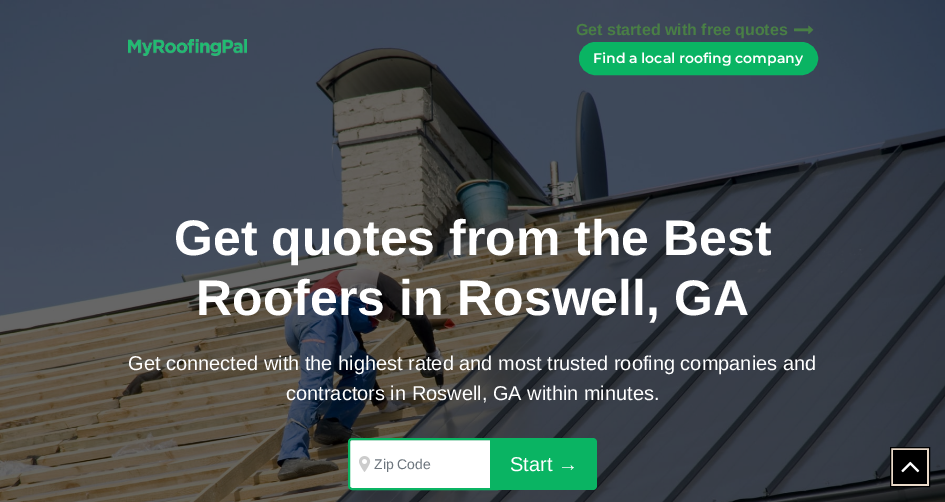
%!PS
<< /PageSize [945 502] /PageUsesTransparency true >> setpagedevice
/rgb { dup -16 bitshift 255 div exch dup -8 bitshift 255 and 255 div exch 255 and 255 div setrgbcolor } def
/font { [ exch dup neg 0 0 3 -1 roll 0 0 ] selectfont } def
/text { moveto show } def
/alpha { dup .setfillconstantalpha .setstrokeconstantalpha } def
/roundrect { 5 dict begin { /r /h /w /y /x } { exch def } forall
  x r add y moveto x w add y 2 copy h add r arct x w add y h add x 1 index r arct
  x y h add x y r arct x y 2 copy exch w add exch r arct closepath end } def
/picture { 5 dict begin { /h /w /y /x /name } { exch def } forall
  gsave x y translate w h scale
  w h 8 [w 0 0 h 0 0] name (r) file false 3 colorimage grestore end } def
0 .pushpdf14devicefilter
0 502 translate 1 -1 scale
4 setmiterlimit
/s1 { /LiberationSans-Bold 16 font 16#497F45 rgb } def
/s2 { /Montserrat-SemiBold 14 font 16#FFFFFF rgb } def
/s3 { /LiberationSans-Bold 50 font 16#FFFFFF rgb } def
/s4 { /LiberationSans-Regular 20 font 16#FFFFFF rgb } def
/s5 { /LiberationSans-Regular 14 font 16#6C757D rgb } def
16#FFFFFF rgb
0 0 945 502 rectfill
(pic3.raw) 0 0 945 502 picture
(pic1.raw) 128 39 119 17 picture
s1
(Get started with free quotes) 576 35 text
(pic2.raw) 794 25 20 9 picture
16#0AB463 rgb
580 43 237 31 15.5 roundrect gsave fill grestore
2 setlinewidth
stroke
s2
(Find a local roofing company) 593 63 text
s3
(Get quotes from the Best) 174 255 text
(Roofers in Roswell, GA) 196 315 text
s4
(Get connected with the highest rated and most trusted roofing companies and) 128 370 text
(contractors in Roswell, GA within minutes.) 286 400 text
352 440 moveto 496 440 lineto 496 488 lineto 352 488 lineto 351 488 350 487 350 486 curveto 350 442 lineto 350 441 351 440 352 440 curveto closepath fill
0.07 alpha
16#000000 rgb
352 441 moveto 496 441 lineto 496 440 lineto 351 440 lineto 350 441 350 442 350 443 curveto 350 442 351 441 352 441 curveto closepath fill
1 alpha
16#0AB463 rgb
352 439 moveto 497 439 lineto 497 489 lineto 352 489 lineto 350.5 489 349 487.5 349 486 curveto 349 442 lineto 349 440.5 350.5 439 352 439 curveto closepath stroke
(pic4.raw) 359 456 12 16 picture
s5
(Zip Code) 374 469 text
16#0AB463 rgb
490 438 moveto 593 438 lineto 595 438 597 440 597 442 curveto 597 486 lineto 597 488 595 490 593 490 curveto 490 490 lineto closepath fill
s4
(Start →) 510 471 text
16#EADAC9 rgb
890.5 447.5 moveto 929.5 447.5 lineto 929.5 486.5 lineto 890.5 486.5 lineto closepath gsave fill grestore
16#000000 rgb
1 setlinewidth
stroke
893 450 34 34 rectfill
(pic5.raw) 901 461 19 12 picture
.poppdf14devicefilter showpage
